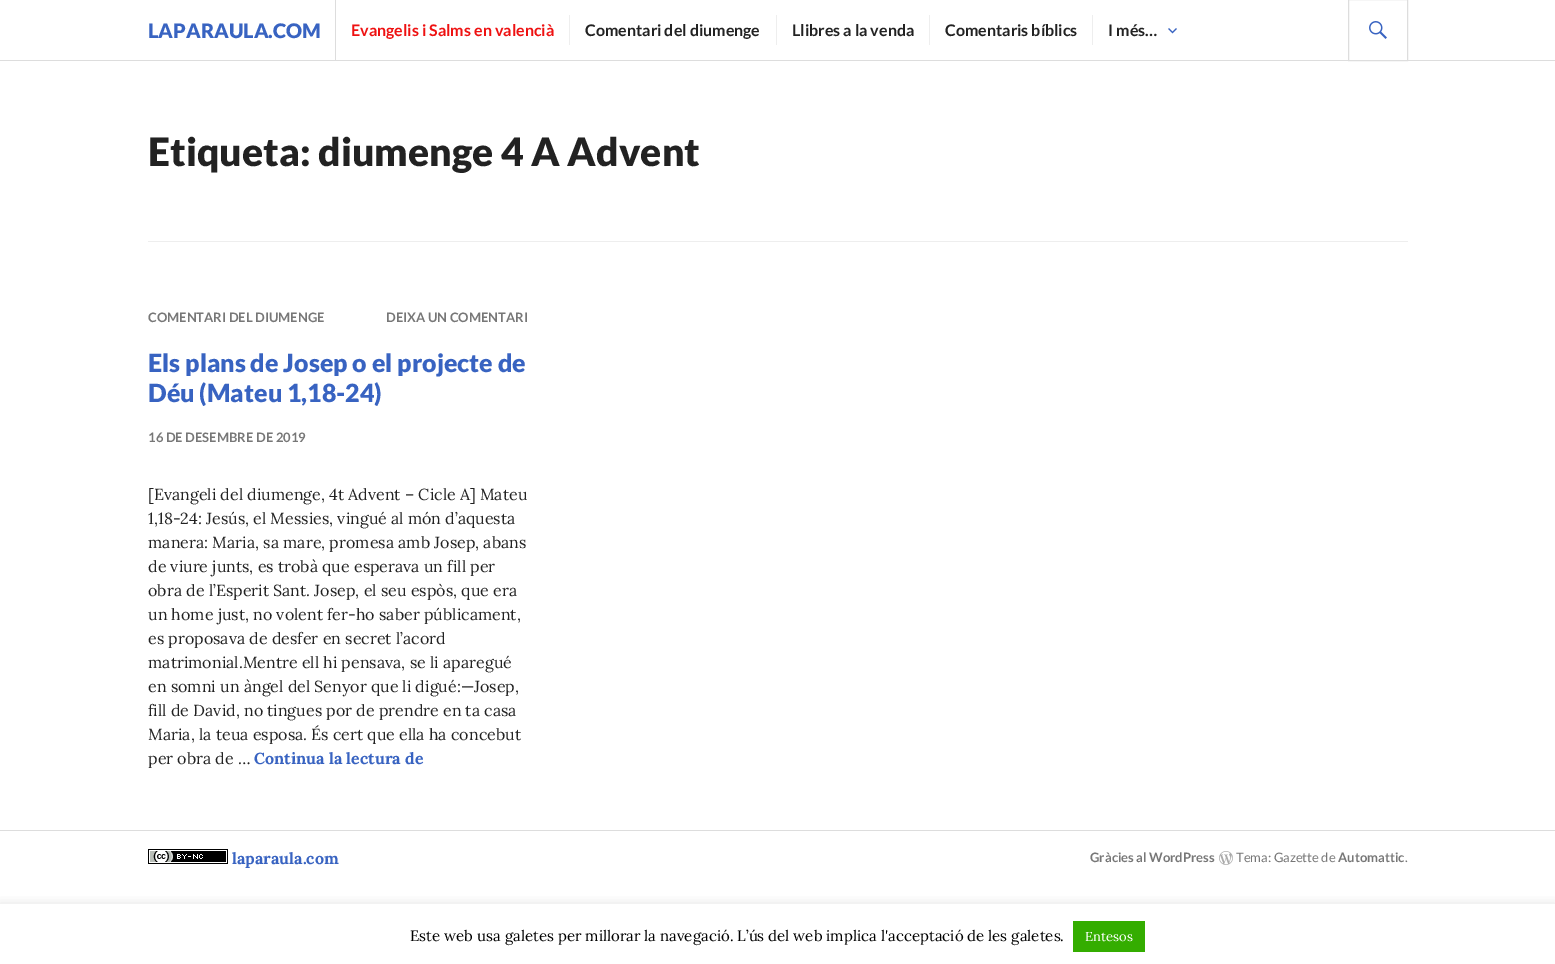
%!PS
<< /PageSize [1555 964] /PageUsesTransparency true >> setpagedevice
/rgb { dup -16 bitshift 255 div exch dup -8 bitshift 255 and 255 div exch 255 and 255 div setrgbcolor } def
/font { [ exch dup neg 0 0 3 -1 roll 0 0 ] selectfont } def
/text { moveto show } def
/alpha { dup .setfillconstantalpha .setstrokeconstantalpha } def
/roundrect { 5 dict begin { /r /h /w /y /x } { exch def } forall
  x r add y moveto x w add y 2 copy h add r arct x w add y h add x 1 index r arct
  x y h add x y r arct x y 2 copy exch w add exch r arct closepath end } def
/shadow { 12 dict begin { /a /b /q /h /w /y /x } { exch def } forall gsave /was 0 def
  9 -2 -9 { dup b mul 4 div /e exch def 1 sub .425 mul 2.718 exch exp 1 add a .99 .min exch div /now exch def
    1 1 now sub 1 was sub div sub alpha /was now def
    w h .min e 2 mul add 0 gt { x e sub y e sub w e 2 mul add h e 2 mul add
      q e add b .6 mul add w h .min 2 div e add .min 0 .max roundrect fill } if } for grestore end } def
/picture { 5 dict begin { /h /w /y /x /name } { exch def } forall
  gsave x y translate w h scale
  w h 8 [w 0 0 h 0 0] name (r) file false 3 colorimage grestore end } def
0 .pushpdf14devicefilter
0 964 translate 1 -1 scale
4 setmiterlimit
/s1 { /Lato-Black 20 font 16#3863C1 rgb } def
/s2 { /Lato-Bold 16 font 16#EE1111 rgb } def
/s3 { /Lato-Bold 16 font 16#222222 rgb } def
/s4 { /Lato-Black 39 font 16#222222 rgb } def
/s5 { /Lato-Bold 13 font 16#777777 rgb } def
/s6 { /Lato-Black 25 font 16#3863C1 rgb } def
/s7 { /Lora-Regular 16 font 16#222222 rgb } def
/s8 { /Lora-Bold 16 font 16#3863C1 rgb } def
/s9 { /Lato-Regular 13 font 16#777777 rgb } def
/s10 { /Lora-Regular 15 font 16#000000 rgb } def
/s11 { /Lora-Regular 13 font 16#FFFFFF rgb } def
16#FFFFFF rgb
0 0 1555 964 rectfill
16#DDDDDD rgb
0 60 1555 1 rectfill
s1
(LAPARAULA.COM) 148 38 text
16#DDDDDD rgb
335 0 1 60 rectfill
s2
(Evangelis i Salms en valencià) 351 36 text
16#EEEEEE rgb
569 15 1 30 rectfill
s3
(Comentari del diumenge) 585 36 text
16#EEEEEE rgb
776 15 1 30 rectfill
s3
(Llibres a la venda) 792 36 text
16#EEEEEE rgb
929 15 1 30 rectfill
s3
(Comentaris bíblics) 945 36 text
16#EEEEEE rgb
1092 15 1 30 rectfill
s3
(I més…) 1108 36 text
(pic1.raw) 1168 28 9 6 picture
16#DDDDDD rgb
1348.5 -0.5 59 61 rectstroke
(pic2.raw) 1369 21 18 18 picture
16#EEEEEE rgb
148 241 1260 1 rectfill
s4
(Etiqueta: diumenge 4 A Advent) 148 166 text
s5
(COMENTARI DEL DIUMENGE) 148 322 text
(DEIXA UN COMENTARI) 386 322 text
s6
(Els plans de Josep o el projecte de) 148 372 text
(Déu \(Mateu 1,18-24\)) 148 402 text
s5
(16 DE DESEMBRE DE 2019) 148 442 text
s7
([Evangeli del diumenge, 4t Advent – Cicle A] Mateu) 148 500 text
(1,18-24: Jesús, el Messies, vingué al món d’aquesta) 148 524 text
(manera: Maria, sa mare, promesa amb Josep, abans) 148 548 text
(de viure junts, es trobà que esperava un fill per) 148 572 text
(obra de l’Esperit Sant. Josep, el seu espòs, que era) 148 596 text
(un home just, no volent fer-ho saber públicament,) 148 620 text
(es proposava de desfer en secret l’acord) 148 644 text
(matrimonial.Mentre ell hi pensava, se li aparegué) 148 668 text
(en somni un àngel del Senyor que li digué:—Josep,) 148 692 text
(fill de David, no tingues por de prendre en ta casa) 148 716 text
(Maria, la teua esposa. És cert que ella ha concebut) 148 740 text
(per obra de …) 148 764 text
s8
(Continua la lectura de) 254 764 text
16#DDDDDD rgb
0 830 1555 1 rectfill
(pic3.raw) 148 849 80 15 picture
s8
(laparaula.com) 232 864 text
s5
(Gràcies al WordPress) 1090 862 text
(pic4.raw) 1219 851 14 14 picture
s9
(Tema: Gazette de) 1236 862 text
s5
(Automattic) 1338 862 text
s9
(.) 1405 862 text
gsave
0 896 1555 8 rectclip
16#ACABAB rgb
0 903 1555 60 0 5 0.3 shadow
grestore
s10
(Este web usa galetes per millorar la navegació. L’ús del web implica l'acceptació de les galetes.) 410 941 text
16#34AD00 rgb
1073 921 72 31 rectfill
s11
(Entesos) 1085 941 text
.poppdf14devicefilter showpage
